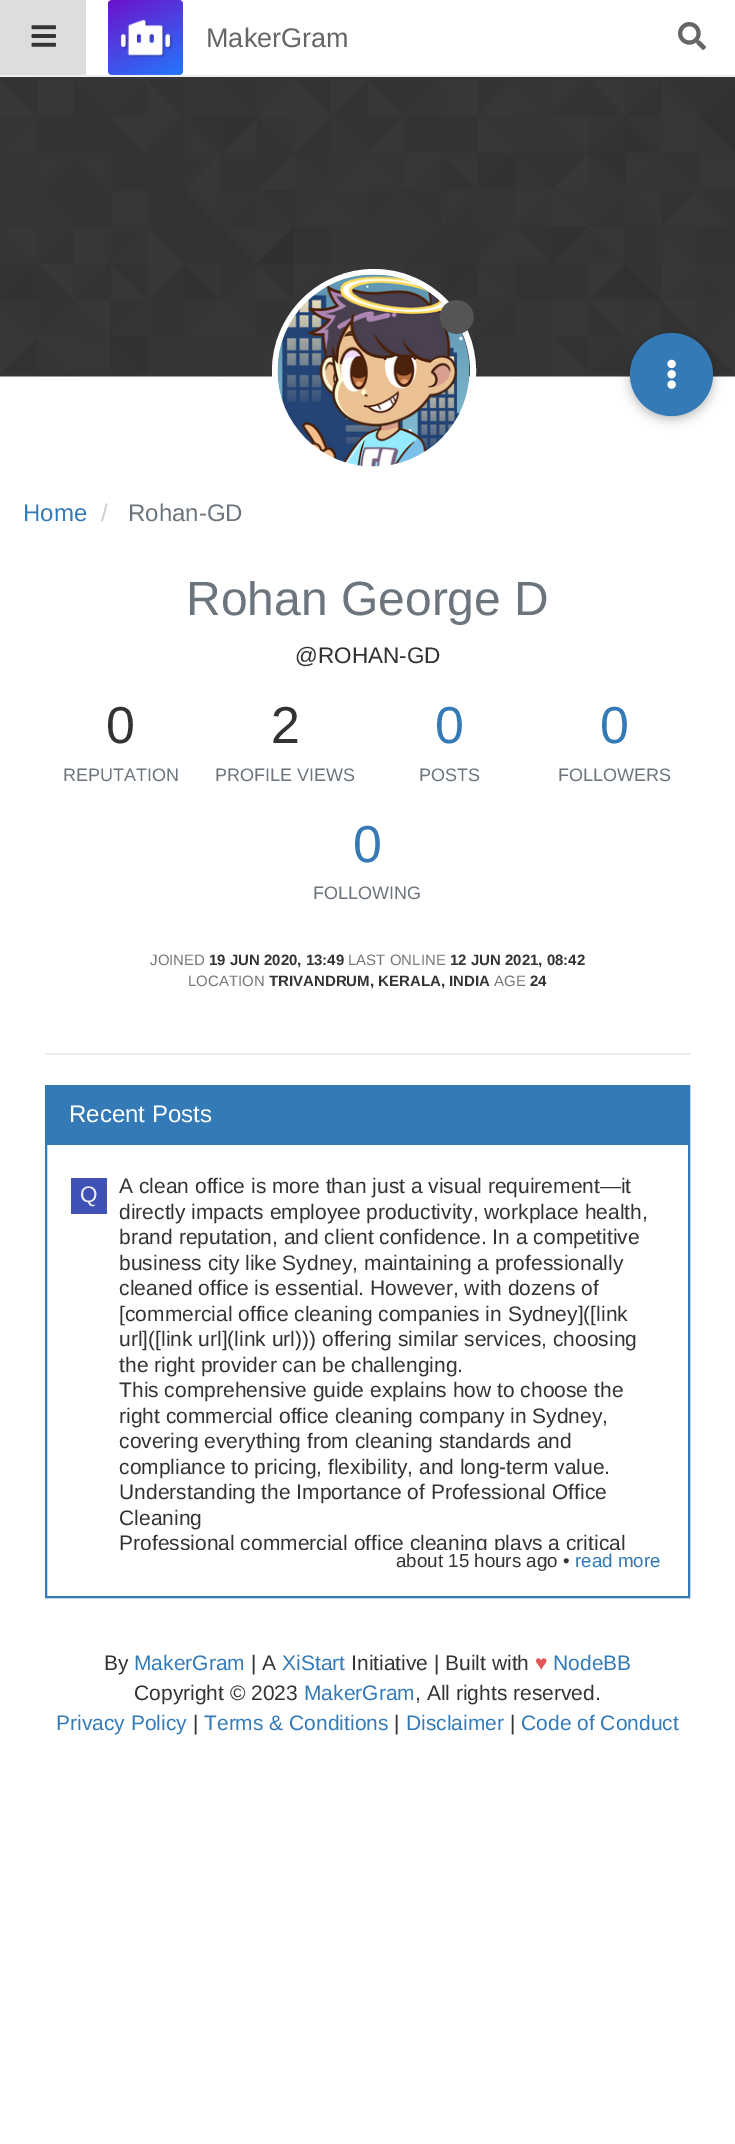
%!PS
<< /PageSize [735 2144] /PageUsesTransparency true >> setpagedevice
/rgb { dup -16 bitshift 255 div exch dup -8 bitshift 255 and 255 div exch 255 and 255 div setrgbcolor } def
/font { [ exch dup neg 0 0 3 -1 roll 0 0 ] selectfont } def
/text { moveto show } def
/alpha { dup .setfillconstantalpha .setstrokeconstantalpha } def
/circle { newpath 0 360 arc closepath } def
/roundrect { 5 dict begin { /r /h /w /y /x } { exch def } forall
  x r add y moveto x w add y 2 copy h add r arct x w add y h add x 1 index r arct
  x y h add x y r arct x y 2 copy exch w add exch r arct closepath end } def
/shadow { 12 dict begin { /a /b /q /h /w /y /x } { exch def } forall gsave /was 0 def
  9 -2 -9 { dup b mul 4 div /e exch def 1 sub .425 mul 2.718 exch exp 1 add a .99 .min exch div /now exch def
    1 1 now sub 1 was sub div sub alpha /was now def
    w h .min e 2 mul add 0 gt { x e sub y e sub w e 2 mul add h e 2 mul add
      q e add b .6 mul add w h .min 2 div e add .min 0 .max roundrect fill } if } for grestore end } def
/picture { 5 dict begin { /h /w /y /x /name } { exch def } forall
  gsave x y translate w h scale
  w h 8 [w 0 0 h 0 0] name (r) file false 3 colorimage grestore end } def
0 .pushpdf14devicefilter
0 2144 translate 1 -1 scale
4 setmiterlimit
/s1 { /LiberationSans-Regular 27 font 16#666666 rgb } def
/s2 { /LiberationSans-Regular 24 font 16#337AB7 rgb } def
/s3 { /LiberationSans-Regular 24 font 16#CCCCCC rgb } def
/s4 { /LiberationSans-Regular 24 font 16#6C757D rgb } def
/s5 { /LiberationSans-Regular 48 font 16#6C757D rgb } def
/s6 { /LiberationSans-Regular 22.5 font 16#333333 rgb } def
/s7 { /LiberationSans-Regular 52 font 16#333333 rgb } def
/s8 { /LiberationSans-Regular 18 font 16#6C757D rgb } def
/s9 { /LiberationSans-Regular 52 font 16#337AB7 rgb } def
/s10 { /LiberationSans-Regular 15 font 16#777777 rgb } def
/s11 { /LiberationSans-Bold 15 font 16#333333 rgb } def
/s12 { /LiberationSans-Regular 24 font 16#FFFFFF rgb } def
/s13 { /LiberationSans-Regular 22.5 font 16#EEEEEE rgb } def
/s14 { /LiberationSans-Regular 21 font 16#333333 rgb } def
/s15 { /LiberationSans-Regular 18.75 font 16#333333 rgb } def
/s16 { /LiberationSans-Regular 18.75 font 16#337AB7 rgb } def
/s17 { /LiberationSans-Regular 21 font 16#337AB7 rgb } def
/s18 { /LiberationSans-Regular 21 font 16#E25555 rgb } def
16#FFFFFF rgb
0 0 735 2144 rectfill
16#EEEEEE rgb
0 75 735 2 rectfill
16#DDDDDD rgb
0 0 86 75 rectfill
(pic1.raw) 31 25 25 22 picture
(pic2.raw) 108 0 75 75 picture
s1
(MakerGram) 206 47 text
(pic3.raw) 678 22 28 28 picture
(pic4.raw) 0 77 735 300 picture
16#FFFFFF rgb
6 setlinewidth
374 371 99 circle stroke
(pic5.raw) 277 274 193 193 picture
16#555555 rgb
445 305 moveto 456 294 475 303 473.5 319 curveto 473 322.5 471.5 326 468.5 329 curveto 457.5 340 438.5 331 440 315.5 curveto 440.5 311.5 442 308 445 305 curveto closepath fill
16#000000 rgb
630 336 83 83 41.5 7.5 0.12 shadow
630 336 83 83 41.5 4 0.16 shadow
16#337AB7 rgb
671.5 374.5 41.5 circle fill
(pic6.raw) 667 359 9 30 picture
s2
(Home) 23 521 text
s3
(/) 101 521 text
s4
(Rohan-GD) 128 521 text
gsave
23 581 690 1047 rectclip
s5
(Rohan George D) 186 615 text
grestore
s6
(@ROHAN-GD) 295 663 text
s7
(0) 106 743 text
s8
(REPUTATION) 63 781 text
s7
(2) 271 743 text
s8
(PROFILE VIEWS) 215 781 text
s9
(0) 435 743 text
s8
(POSTS) 419 781 text
s9
(0) 600 743 text
s8
(FOLLOWERS) 558 781 text
s9
(0) 353 862 text
s8
(FOLLOWING) 313 899 text
s10
(JOINED) 150 965 text
s11
(19 JUN 2020, 13:49) 209 965 text
s10
(LAST ONLINE) 348 965 text
s11
(12 JUN 2021, 08:42) 450 965 text
s10
(LOCATION) 188 986 text
s11
(TRIVANDRUM, KERALA, INDIA) 269 986 text
s10
(AGE) 494 986 text
s11
(24) 530 986 text
16#EEEEEE rgb
45 1053 645 2 rectfill
16#000000 rgb
45 1086 645 513 0 1 0.05 shadow
16#FFFFFF rgb
47 1145 641 451 rectfill
16#337AB7 rgb
2 setlinewidth
46 1086 643 511 rectstroke
47 1087 641 58 rectfill
s12
(Recent Posts) 69 1122 text
16#3F51B5 rgb
71 1178 36 36 rectfill
s13
(Q) 80 1202 text
s14
(A clean office is more than just a visual requirement—it) 119 1193 text
(directly impacts employee productivity, workplace health,) 119 1219 text
(brand reputation, and client confidence. In a competitive) 119 1244 text
(business city like Sydney, maintaining a professionally) 119 1270 text
(cleaned office is essential. However, with dozens of) 119 1295 text
([commercial office cleaning companies in Sydney]\([link) 119 1321 text
(url]\([link url]\(link url\)\)\) offering similar services, choosing) 119 1346 text
(the right provider can be challenging.) 119 1372 text
(This comprehensive guide explains how to choose the) 119 1397 text
(right commercial office cleaning company in Sydney,) 119 1423 text
(covering everything from cleaning standards and) 119 1448 text
(compliance to pricing, flexibility, and long-term value.) 119 1474 text
(Understanding the Importance of Professional Office) 119 1499 text
(Cleaning) 119 1525 text
gsave
119 1175 541 375 rectclip
(Professional commercial office cleaning plays a critical) 119 1550 text
grestore
s15
(about 15 hours ago •) 396 1567 text
s16
(read more) 575 1567 text
s14
(By) 104 1670 text
s17
(MakerGram) 134 1670 text
s14
(| A) 251 1670 text
s17
(XiStart) 282 1670 text
s14
(Initiative | Built with) 351 1670 text
s18
(♥) 535 1670 text
s17
(NodeBB) 553 1670 text
s14
(Copyright © 2023) 134 1700 text
s17
(MakerGram) 304 1700 text
s14
(, All rights reserved.) 415 1700 text
s17
(Privacy Policy) 56 1730 text
s14
(|) 193 1730 text
s17
(Terms & Conditions) 204 1730 text
s14
(|) 394 1730 text
s17
(Disclaimer) 406 1730 text
s14
(|) 510 1730 text
s17
(Code of Conduct) 521 1730 text
.poppdf14devicefilter showpage
